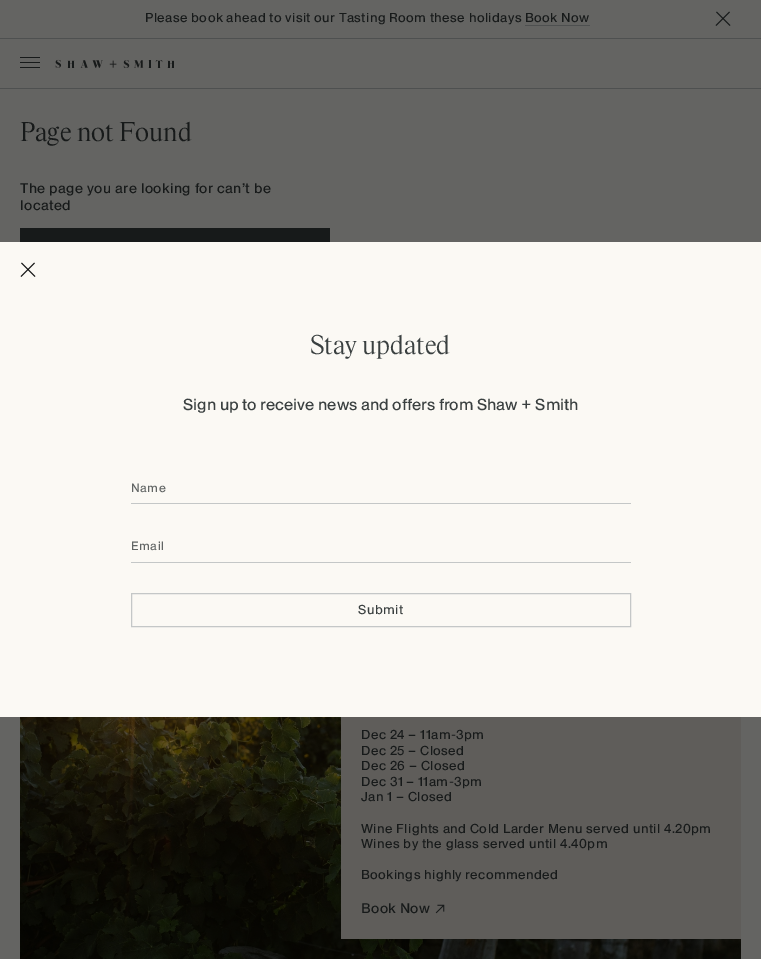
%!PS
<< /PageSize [761 959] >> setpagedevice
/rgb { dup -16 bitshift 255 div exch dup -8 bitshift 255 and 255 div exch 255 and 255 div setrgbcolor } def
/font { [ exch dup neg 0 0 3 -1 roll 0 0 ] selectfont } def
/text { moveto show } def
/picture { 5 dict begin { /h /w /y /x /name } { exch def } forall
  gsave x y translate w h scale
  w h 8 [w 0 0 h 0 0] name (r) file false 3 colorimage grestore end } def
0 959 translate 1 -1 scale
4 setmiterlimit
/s1 { /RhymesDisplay-Light 26 font 16#171A1A rgb } def
/s2 { /RhymesDisplay-Light 26 font 16#3A4040 rgb } def
/s3 { /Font-Regular 16 font 16#3A4040 rgb } def
16#646462 rgb
0 0 761 959 rectfill
16#4E5050 rgb
0 38 761 1 rectfill
/Font-Regular 13 font
16#171A1A rgb
145 22 moveto 0.4 0 (Please book ahead to visit our Tasting Room these holidays Book Now) ashow
16#4E5050 rgb
525 25 65 1 rectfill
16#171A1A rgb
716.5 12 moveto 730 25.5 lineto 729.5 12 moveto 716 25.5 lineto stroke
16#4E5050 rgb
0 88 761 1 rectfill
16#171A1A rgb
20 57 20 1 rectfill
20 62 20 1 rectfill
20 67 20 1 rectfill
(pic1.raw) 55 59 119 9 picture
s1
(Page not Found) 20 141 text
/Font-Regular 14 font
20 193 moveto 0.4 0 (The page you are looking for can’t be) ashow
20 210 moveto 0.4 0 (located) ashow
20 228 310 14 rectfill
(pic2.raw) 20 717 721 242 picture
16#FBF9F4 rgb
0 242 761 475 rectfill
16#121212 rgb
21.5 263 moveto 35 276.5 lineto 34.5 263 moveto 21 276.5 lineto stroke
s2
(Stay updated) 310 354 text
s3
(Sign up to receive news and offers from Shaw + Smith) 183 410 text
/Font-Regular 12 font
16#616564 rgb
131 492 moveto 0.5 0 (Name) ashow
16#C4C7C7 rgb
131 503 500 1 rectfill
16#616564 rgb
131 550 moveto 0.5 0 (Email) ashow
16#C4C7C7 rgb
131 562 500 1 rectfill
131.5 593.5 499 33 rectstroke
/Font-Regular 13 font
16#3A4040 rgb
358 614 moveto 0.4 0 (Submit) ashow
16#5F5D5A rgb
341 717 400 222 rectfill
16#171A1A rgb
361 739 moveto 0.4 0 (Dec 24 – 11am-3pm) ashow
361 755 moveto 0.4 0 (Dec 25 – Closed) ashow
361 770 moveto 0.4 0 (Dec 26 – Closed) ashow
361 786 moveto 0.4 0 (Dec 31 – 11am-3pm) ashow
361 801 moveto 0.4 0 (Jan 1 – Closed) ashow
361 833 moveto 0.4 0 (Wine Flights and Cold Larder Menu served until 4.20pm) ashow
361 848 moveto 0.4 0 (Wines by the glass served until 4.40pm) ashow
361 879 moveto 0.4 0 (Bookings highly recommended) ashow
/Font-Regular 14 font
361 913 moveto 0.4 0 (Book Now) ashow
(pic3.raw) 435 904 10 10 picture
showpage
